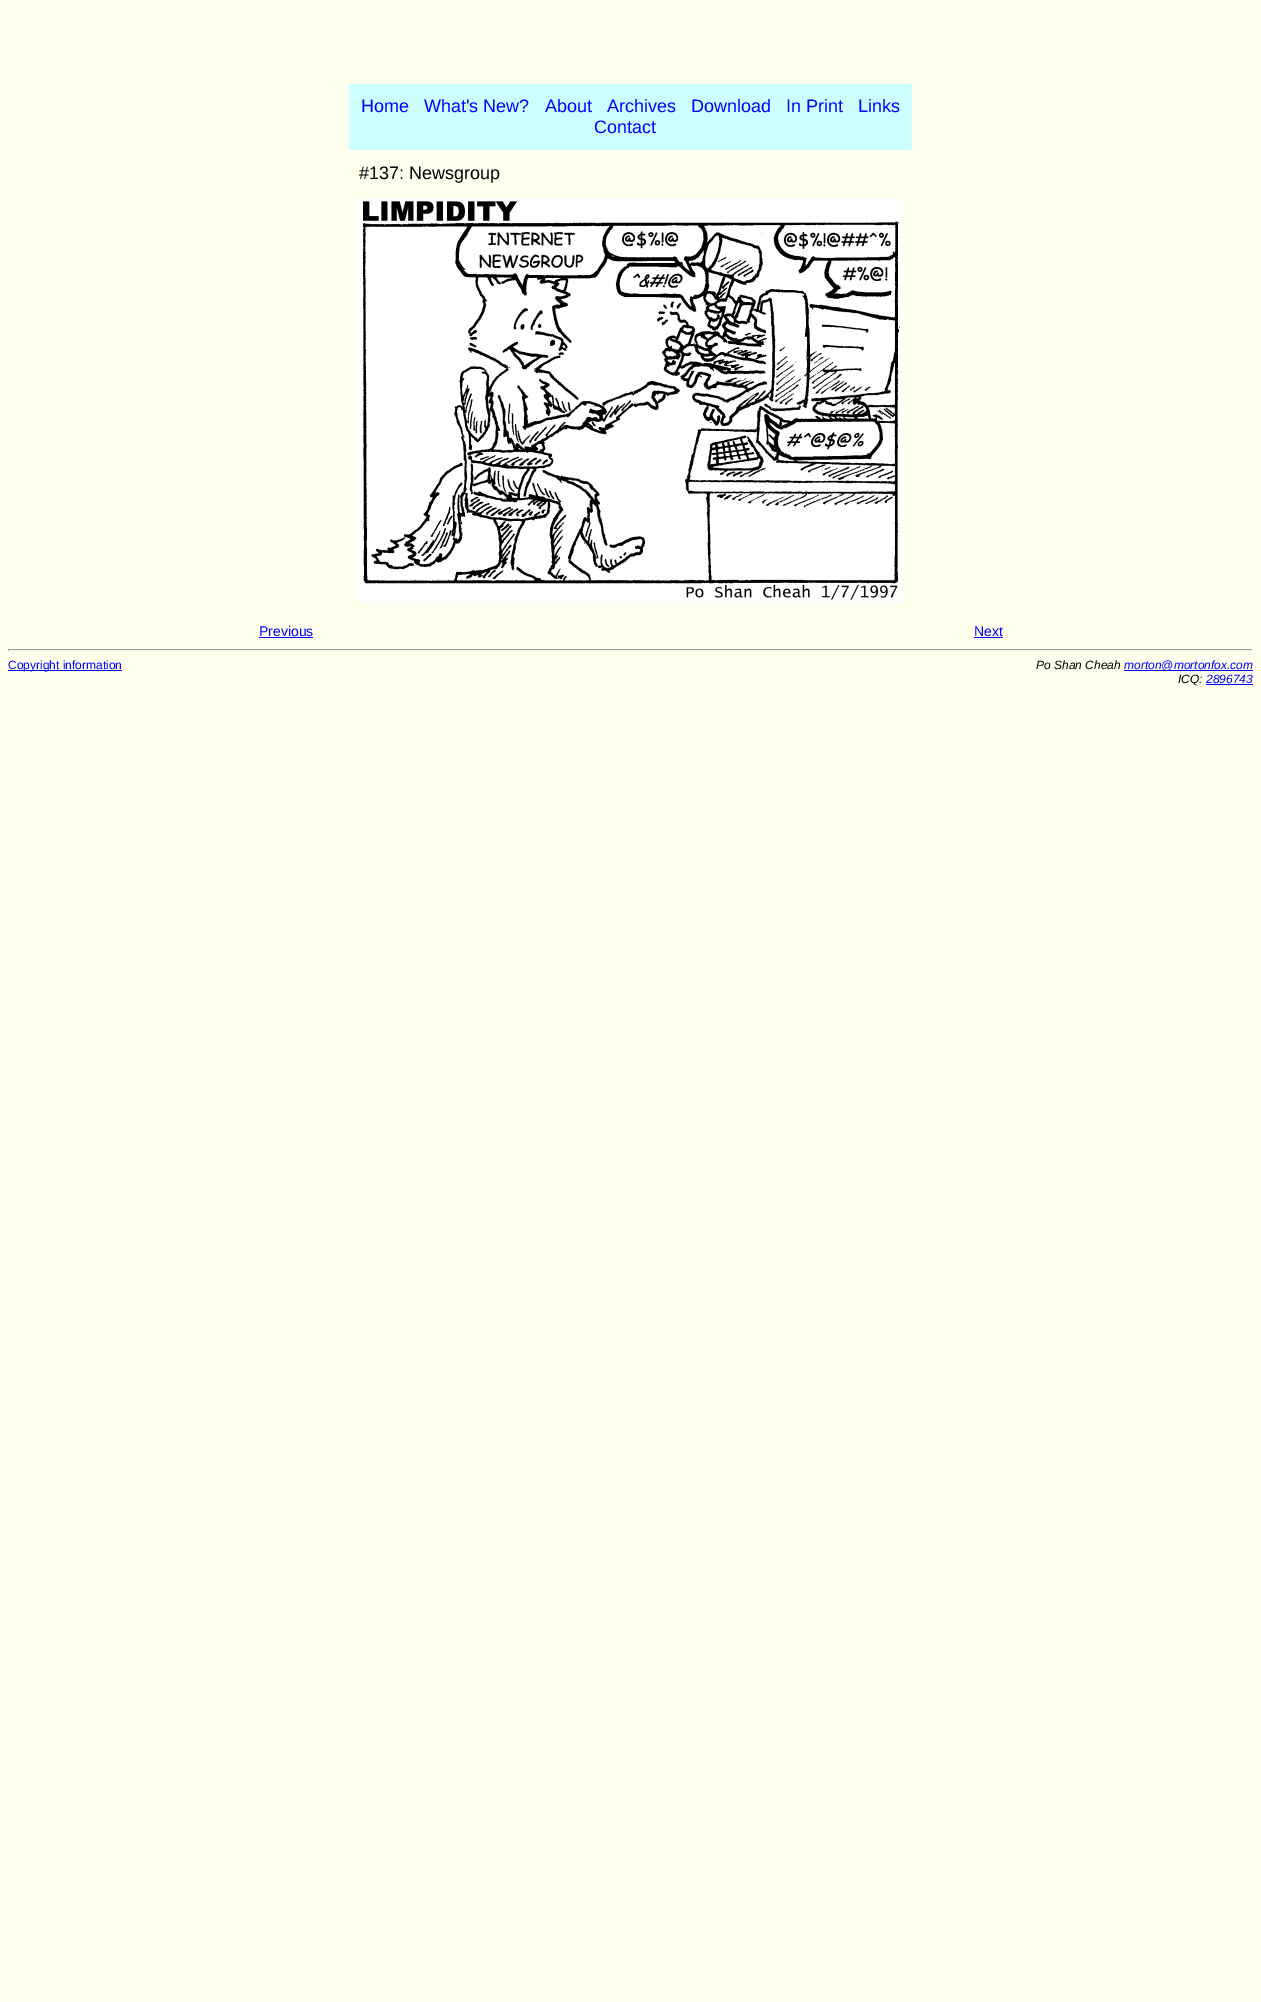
%!PS
<< /PageSize [1261 2002] >> setpagedevice
/rgb { dup -16 bitshift 255 div exch dup -8 bitshift 255 and 255 div exch 255 and 255 div setrgbcolor } def
/font { [ exch dup neg 0 0 3 -1 roll 0 0 ] selectfont } def
/text { moveto show } def
/picture { 5 dict begin { /h /w /y /x /name } { exch def } forall
  gsave x y translate w h scale
  w h 8 [w 0 0 h 0 0] name (r) file false 3 colorimage grestore end } def
0 2002 translate 1 -1 scale
4 setmiterlimit
/s1 { /LiberationSans-Regular 18 font 16#0000FF rgb } def
/s2 { /LiberationSans-Regular 18 font 16#000000 rgb } def
/s3 { /LiberationSans-Regular 14 font 16#0000FF rgb } def
/s4 { /LiberationSans-Regular 12 font 16#0000FF rgb } def
/s5 { /LiberationSans-Italic 12 font 16#000000 rgb } def
/s6 { /LiberationSans-Italic 12 font 16#0000FF rgb } def
16#FFFFEE rgb
0 0 1261 2002 rectfill
16#CCFFFF rgb
349 84 563 66 rectfill
s1
(Home) 361 112 text
(What's New?) 424 112 text
(About) 545 112 text
(Archives) 607 112 text
(Download) 691 112 text
(In Print) 786 112 text
(Links) 858 112 text
(Contact) 594 133 text
s2
(#137: Newsgroup) 359 179 text
(pic1.raw) 359 198 544 405 picture
s3
(Previous) 259 636 text
259 637 54 1 rectfill
(Next) 974 636 text
974 637 29 1 rectfill
16#9F9F9F rgb
8 649 1245 1 rectfill
16#EEEEEE rgb
1252 649 1 2 rectfill
8 650 1245 1 rectfill
16#9F9F9F rgb
8 649 1 2 rectfill
16#0000FF rgb
8 670 114 1 rectfill
s4
(Copyright information) 8 669 text
s5
(Po Shan Cheah) 1036 669 text
16#0000FF rgb
1124 670 129 1 rectfill
(morton@mortonfox.com) 1124 669 text
s5
(ICQ:) 1178 683 text
s6
(2896743) 1206 683 text
1206 684 47 1 rectfill
showpage
